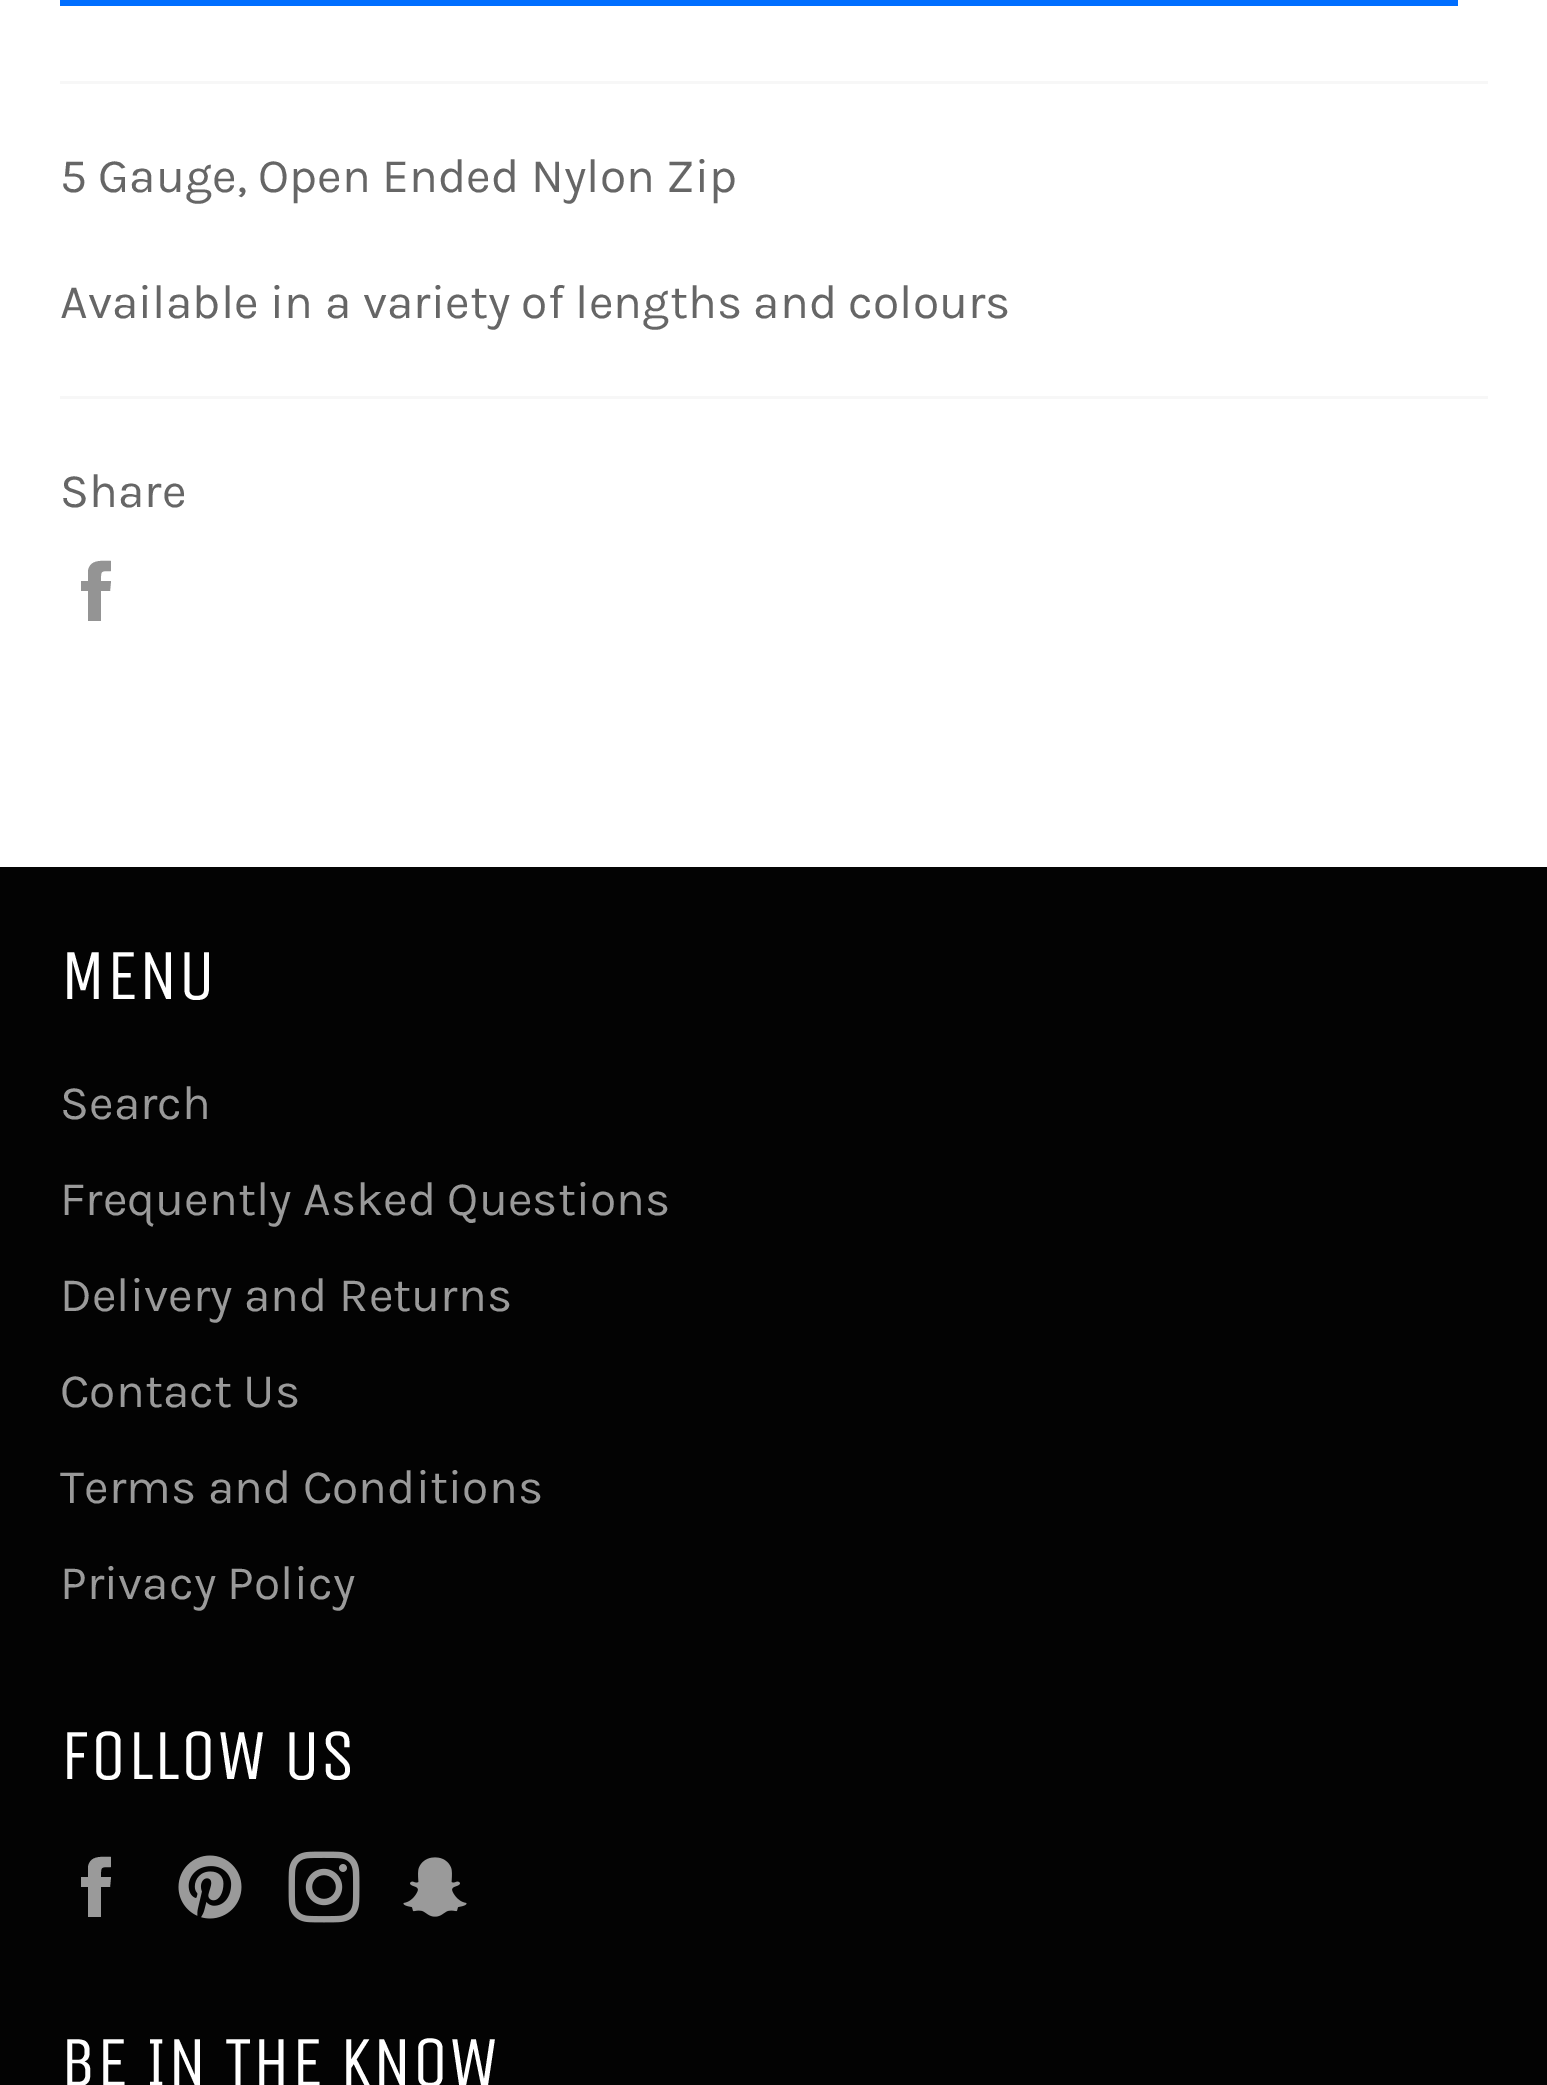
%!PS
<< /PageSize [1547 2085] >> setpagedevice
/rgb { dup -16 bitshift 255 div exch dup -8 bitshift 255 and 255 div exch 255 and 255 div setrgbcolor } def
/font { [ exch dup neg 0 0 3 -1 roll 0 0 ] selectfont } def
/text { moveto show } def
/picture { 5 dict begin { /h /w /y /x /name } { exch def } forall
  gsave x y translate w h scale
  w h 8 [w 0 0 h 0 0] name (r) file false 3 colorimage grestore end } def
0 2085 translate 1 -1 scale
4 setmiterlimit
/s1 { /Karla-Regular 48 font 16#666666 rgb } def
/s2 { /UnicaOne-Regular 72 font 16#FFFFFF rgb } def
/s3 { /Karla-Regular 48 font 16#9A9A9A rgb } def
16#FFFFFF rgb
0 0 1547 2085 rectfill
16#006EFF rgb
60 0 1398 6 rectfill
16#F7F7F7 rgb
60 81 1428 3 rectfill
s1
(5 Gauge, Open Ended Nylon Zip) 60 192 text
(Available in a variety of lengths and colours) 60 318 text
16#F7F7F7 rgb
60 396 1428 3 rectfill
s1
(Share) 60 507 text
16#949494 rgb
101 581 moveto 101 571 100 571 111 571 curveto 111 561 lineto 102 561 90 559 88 571 curveto 88 581 lineto 81 581 lineto 81 591 lineto 88 591 lineto 88 621 lineto 101 621 lineto 101 591 lineto 110 591 lineto 111 581 lineto closepath fill
16#030303 rgb
0 867 1547 1218 rectfill
s2
(MENU) 60 999 text
s3
(Search) 60 1119 text
(Frequently Asked Questions) 60 1215 text
(Delivery and Returns) 60 1311 text
(Contact Us) 60 1407 text
(Terms and Conditions) 60 1503 text
(Privacy Policy) 60 1599 text
s2
(FOLLOW US) 60 1779 text
16#9A9A9A rgb
101 1877 moveto 101 1867 100 1867 111 1867 curveto 111 1857 lineto 102 1857 90 1855 88 1867 curveto 88 1877 lineto 81 1877 lineto 81 1887 lineto 88 1887 lineto 88 1917 lineto 101 1917 lineto 101 1887 lineto 110 1887 lineto 111 1877 lineto closepath fill
(pic1.raw) 178 1855 64 64 picture
(pic2.raw) 288 1851 72 72 picture
(pic3.raw) 403 1857 64 60 picture
s2
(BE IN THE KNOW) 60 2086 text
showpage
